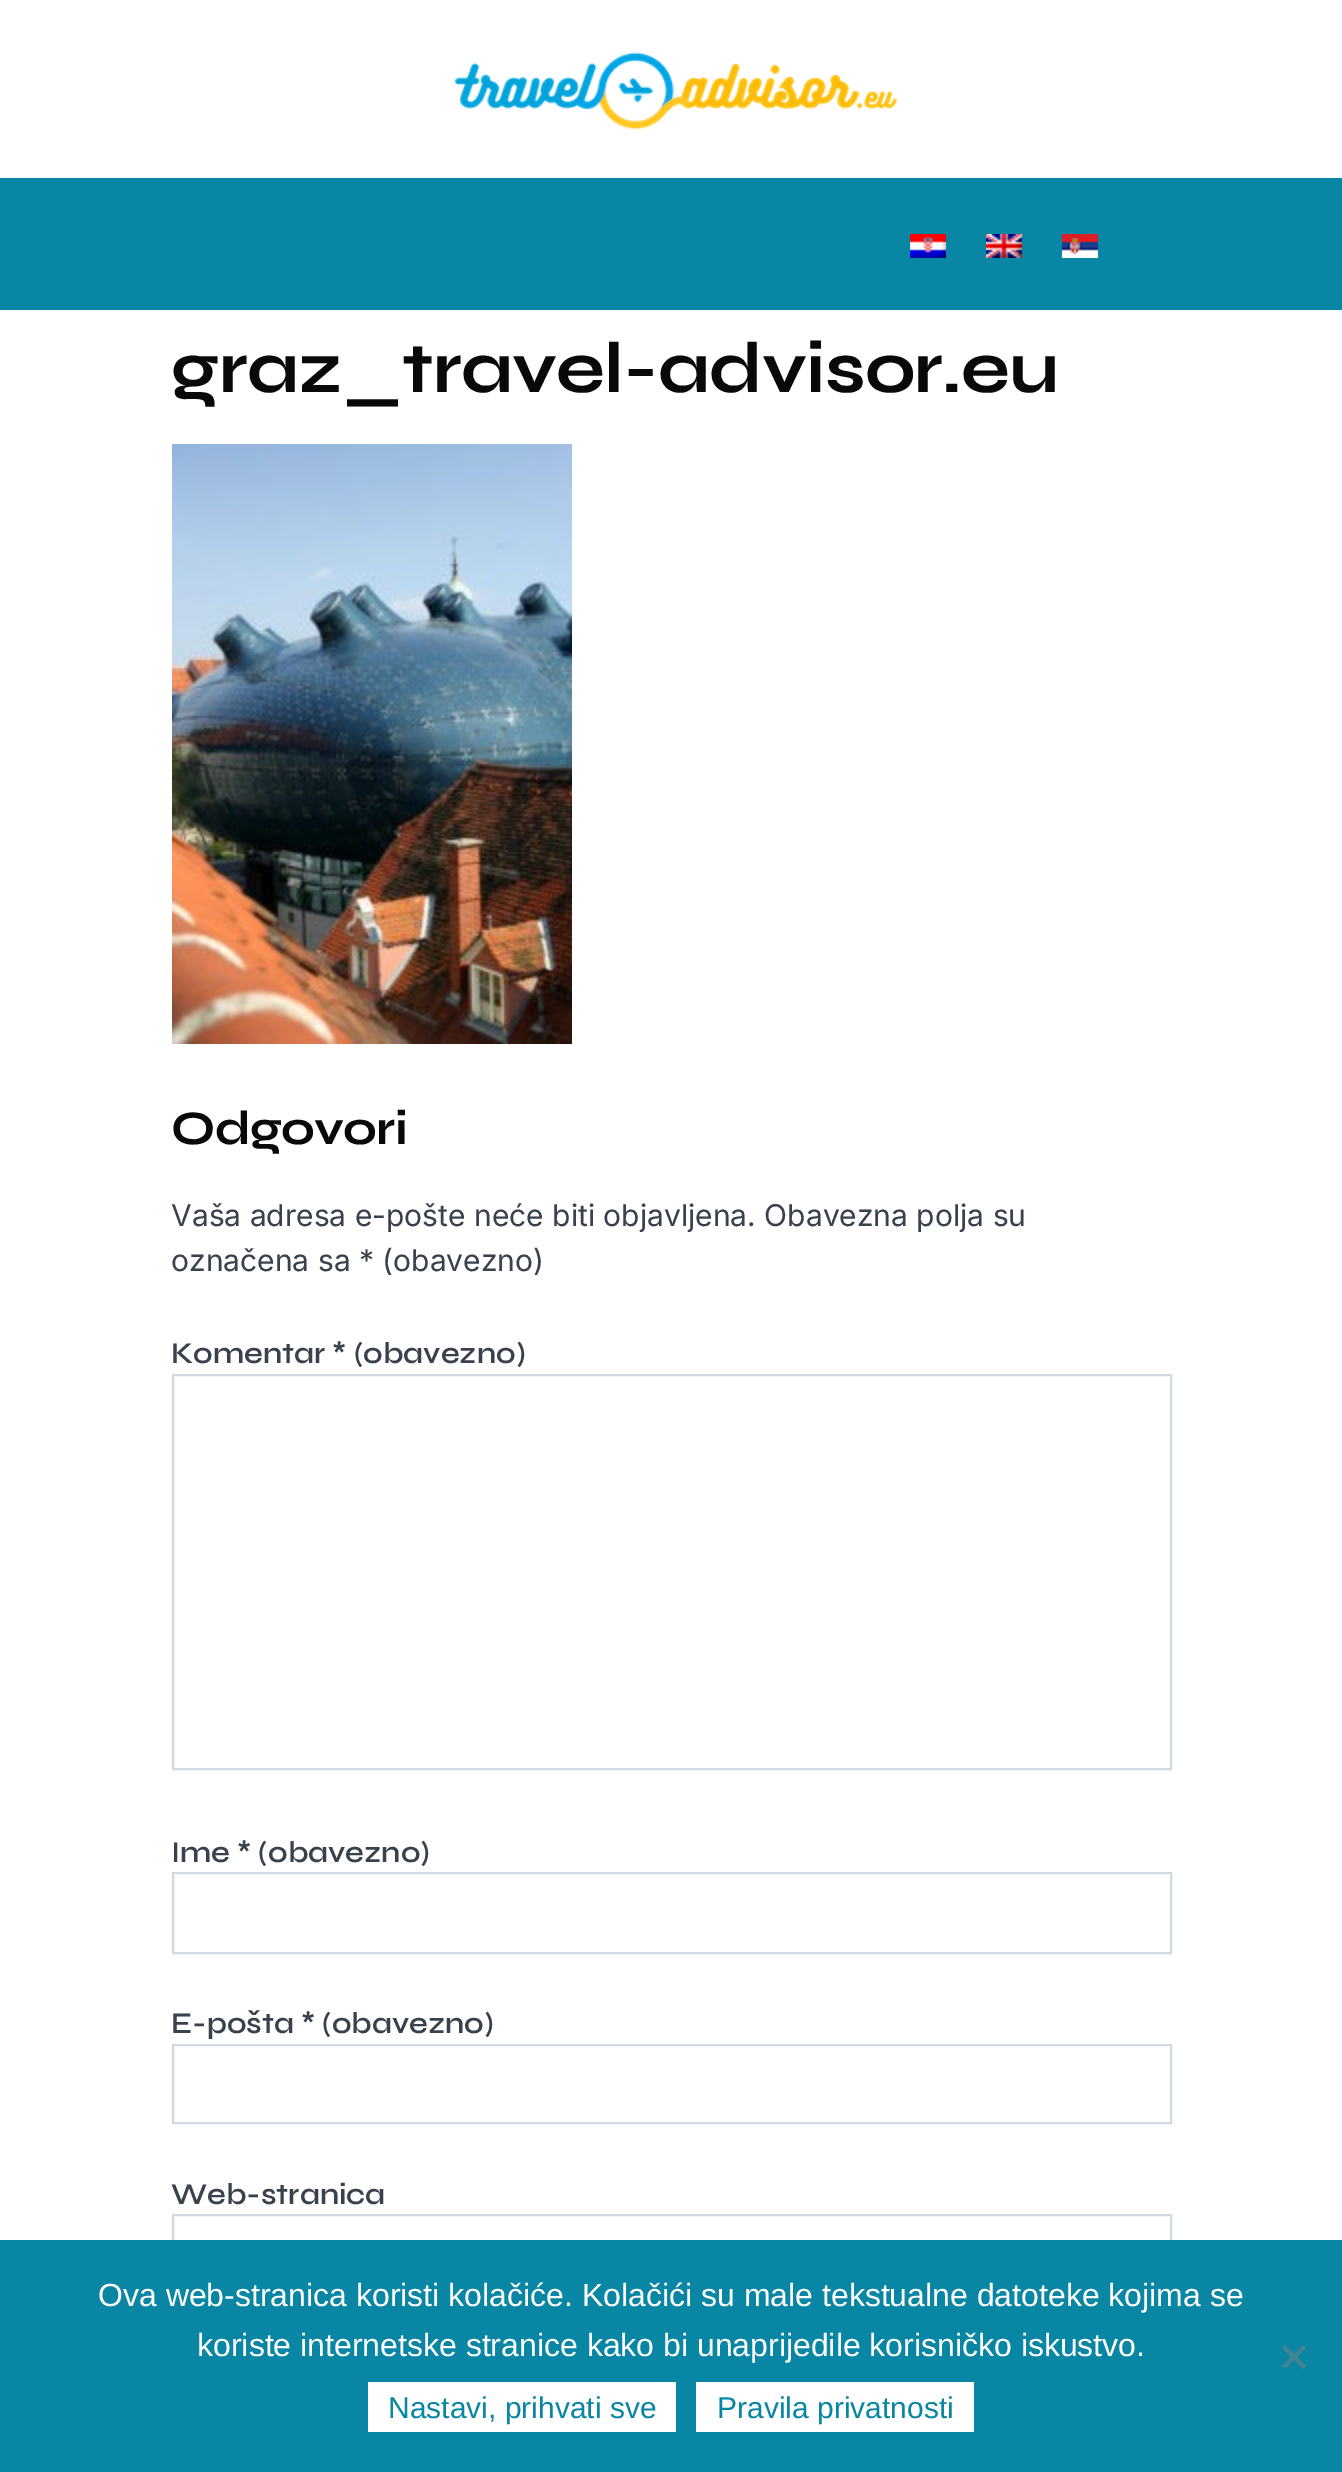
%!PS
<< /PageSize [1342 2472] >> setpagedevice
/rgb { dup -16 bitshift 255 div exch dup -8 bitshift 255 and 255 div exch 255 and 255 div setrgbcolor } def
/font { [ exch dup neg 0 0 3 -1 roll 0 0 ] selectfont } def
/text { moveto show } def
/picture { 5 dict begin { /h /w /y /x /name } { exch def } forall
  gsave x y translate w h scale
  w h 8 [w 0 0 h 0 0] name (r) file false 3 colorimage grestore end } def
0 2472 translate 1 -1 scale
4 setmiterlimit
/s1 { /Inter-Regular 30 font 16#39414D rgb } def
/s2 { /Syne-SemiBold 30 font 16#39414D rgb } def
/s3 { /LiberationSans-Regular 32 font 16#FFFFFF rgb } def
/s4 { /LiberationSans-Regular 30 font 16#0886A3 rgb } def
16#FFFFFF rgb
0 0 1342 2472 rectfill
(pic1.raw) 454 52 444 78 picture
16#0886A3 rgb
0 178 1342 132 rectfill
(pic2.raw) 910 234 36 24 picture
(pic3.raw) 986 234 36 24 picture
(pic4.raw) 1062 234 36 24 picture
/Syne-Bold 72 font
16#090909 rgb
171 392 moveto -0.8 0 (graz_travel-advisor.eu) ashow
(pic5.raw) 172 444 400 600 picture
/Syne-Bold 48 font
171 1144 moveto -0.8 0 (Odgovori) ashow
s1
(Vaša adresa e-pošte neće biti objavljena. Obavezna polja su) 171 1226 text
(označena sa * \(obavezno\)) 171 1271 text
s2
(Komentar * \(obavezno\)) 171 1363 text
16#D3D9E1 rgb
2 setlinewidth
173 1375 998 394 rectstroke
s2
(Ime * \(obavezno\)) 171 1862 text
16#D3D9E1 rgb
173 1873 998 80 rectstroke
s2
(E-pošta * \(obavezno\)) 171 2033 text
16#D3D9E1 rgb
173 2045 998 78 rectstroke
s2
(Web-stranica) 171 2204 text
16#D3D9E1 rgb
173 2215 998 80 rectstroke
16#0886A3 rgb
0 2240 1342 232 rectfill
s3
(Ova web-stranica koristi kolačiće. Kolačići su male tekstualne datoteke kojima se) 98 2306 text
(koriste internetske stranice kako bi unaprijedile korisničko iskustvo.) 197 2356 text
16#448392 rgb
1303 2345 moveto 1306 2348 lineto 1285 2369 lineto 1282 2366 lineto closepath fill
1282 2348 moveto 1285 2345 lineto 1306 2366 lineto 1303 2369 lineto closepath fill
16#FFFFFF rgb
368 2382 308 50 rectfill
s4
(Nastavi, prihvati sve) 388 2418 text
16#FFFFFF rgb
696 2382 278 50 rectfill
s4
(Pravila privatnosti) 717 2418 text
showpage
